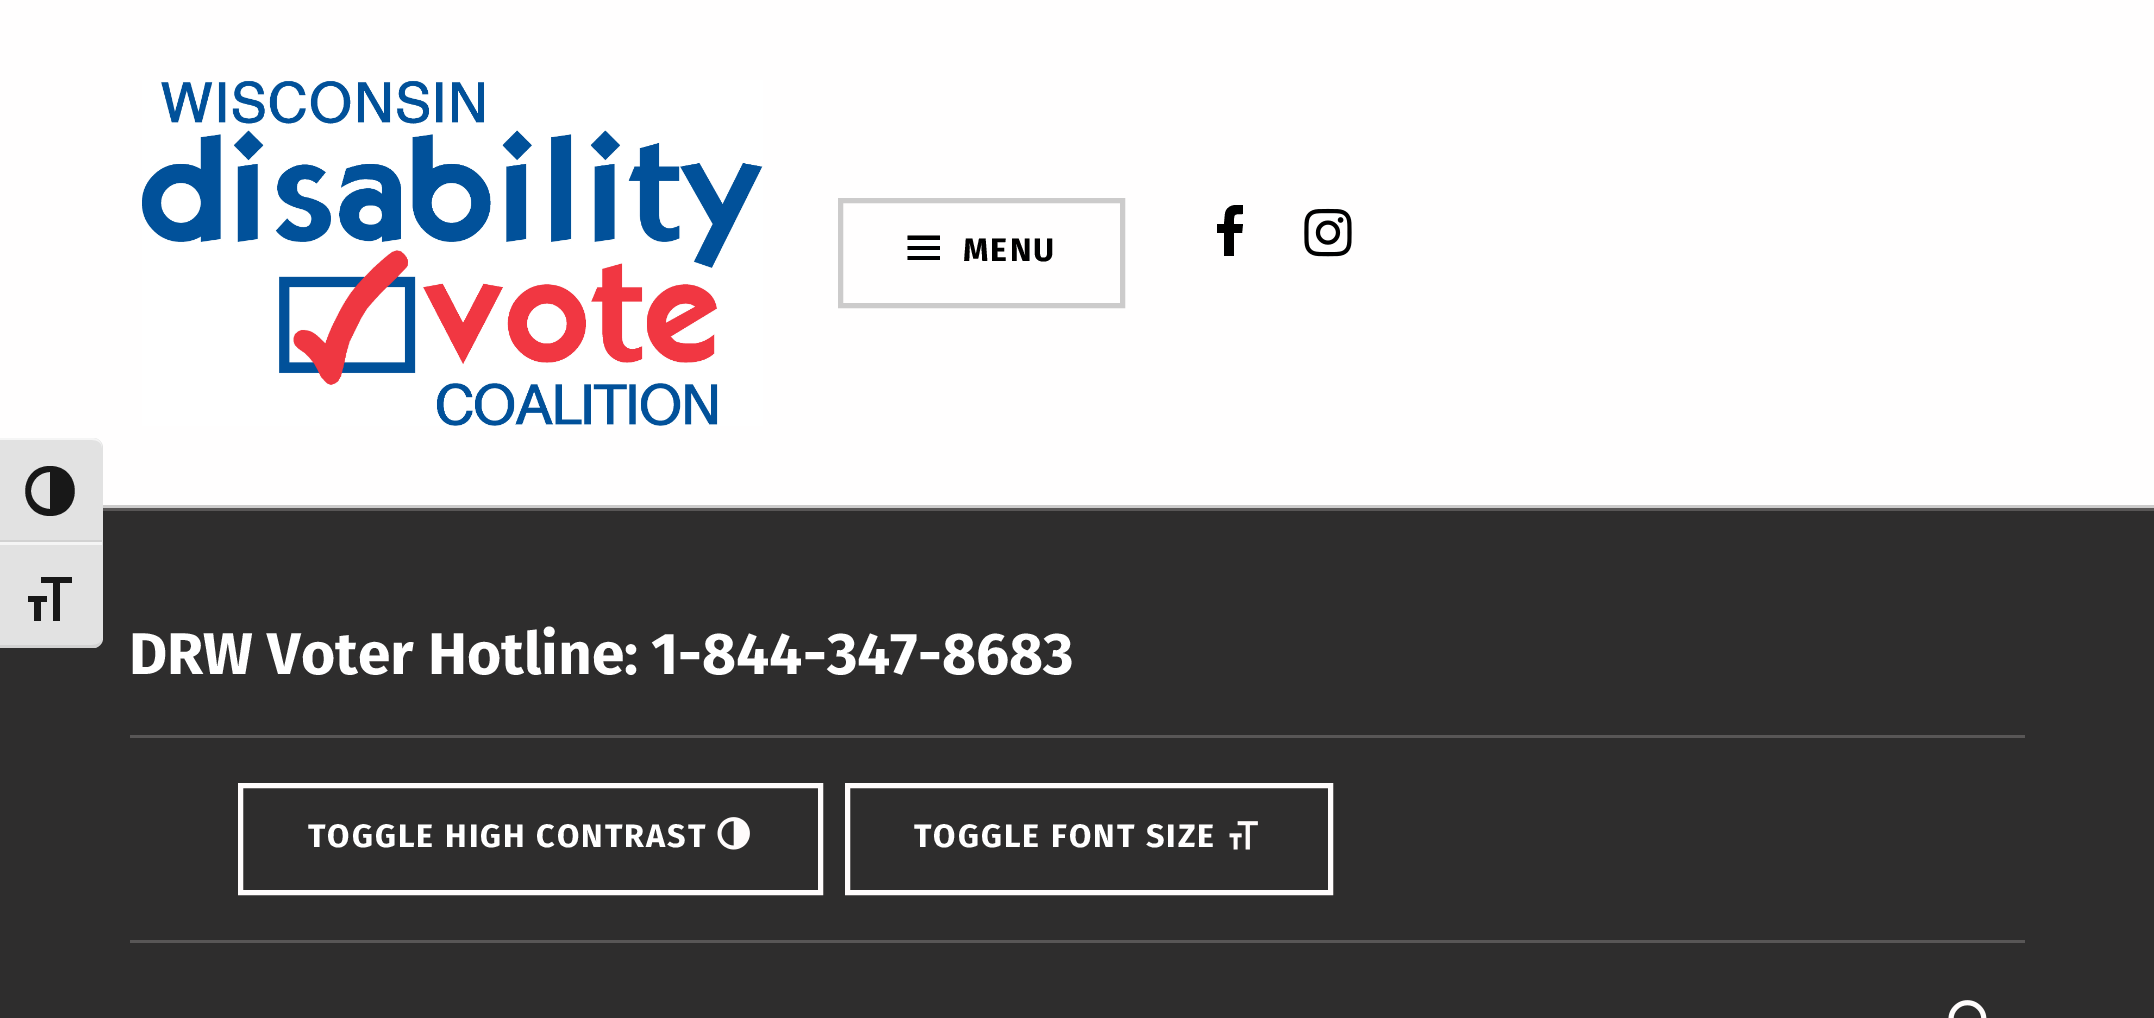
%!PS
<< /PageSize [2154 1018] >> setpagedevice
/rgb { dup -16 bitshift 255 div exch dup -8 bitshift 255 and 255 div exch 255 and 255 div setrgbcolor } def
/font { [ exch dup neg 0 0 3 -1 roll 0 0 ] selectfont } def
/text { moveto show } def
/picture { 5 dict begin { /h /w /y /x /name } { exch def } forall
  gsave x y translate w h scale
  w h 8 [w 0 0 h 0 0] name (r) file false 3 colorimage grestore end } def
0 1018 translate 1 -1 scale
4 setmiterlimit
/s1 { /FiraSans-Bold 58.75 font 16#FFFFFF rgb } def
16#FFFEFE rgb
0 0 2154 1018 rectfill
16#2E2D2D rgb
0 511 2154 507 rectfill
16#E2E2E2 rgb
0 438 moveto 93 438 lineto 98.5 438 103 442.5 103 448 curveto 103 543 lineto 0 543 lineto closepath fill
16#F5F5F5 rgb
0 440 moveto 92 440 lineto 98 440 102 443 102 448 curveto 102 442 98 438 92 438 curveto 0 438 lineto closepath fill
16#D2D2D2 rgb
0 540 102 2 rectfill
16#181818 rgb
50 466 moveto 17 466 17 516 50 516 curveto 83 516 83 466 50 466 curveto closepath 31 491 moveto 31 480 40 472 50 472 curveto 50 509 lineto 40 509 31 501 31 491 curveto closepath fill
16#E2E2E2 rgb
0 543 moveto 103 543 lineto 103 638 lineto 103 643.5 98.5 648 93 648 curveto 0 648 lineto closepath fill
16#F5F5F5 rgb
0 542 102 3 rectfill
16#D2D2D2 rgb
95 648 moveto 99 646 102 642 102 638 curveto 102 642 98 645 92 645 curveto 0 645 lineto 0 648 lineto closepath fill
16#181818 rgb
28 596 moveto 47 596 lineto 47 602 lineto 41 602 lineto 41 621 lineto 34 621 lineto 34 602 lineto 28 602 lineto closepath 72 583 moveto 60 583 lineto 60 621 lineto 53 621 lineto 53 583 lineto 41 583 lineto 41 577 lineto 72 577 lineto closepath fill
16#CCCBCB rgb
103 505 2051 3 rectfill
(pic1.raw) 142 80 621 346 picture
5 setlinewidth
840.5 200.5 282 105 rectstroke
16#000000 rgb
907.5 260 moveto 907.5 256 lineto 940 256 lineto 940 260 lineto closepath 907.5 235.5 moveto 940 235.5 lineto 940 240 lineto 907.5 240 lineto closepath 907.5 250 moveto 907.5 246 lineto 940 246 lineto 940 250 lineto closepath fill
/FiraSans-Bold 32.4 font
963 261 moveto 2 0 (MENU) ashow
gsave
1203 205 55 55 rectclip
1243 205 moveto 1243 214 lineto 1233 214 1234 214 1234 224 curveto 1243 224 lineto 1242 233 lineto 1234 233 lineto 1234 256 lineto 1224 256 lineto 1224 233 lineto 1217 233 lineto 1217 224 lineto 1224 224 lineto 1225 214 lineto 1226 205 1236 204 1243 205 curveto closepath fill
grestore
(pic2.raw) 1304 208 48 49 picture
16#585656 rgb
103 508 2051 3 rectfill
130 735 1895 3 rectfill
s1
(DRW Voter Hotline:) 129 674 text
(1-844-347-8683) 651 674 text
16#585656 rgb
130 940 1895 3 rectfill
16#FFFCFC rgb
240.5 785.5 580 107 rectstroke
/FiraSans-Bold 32.4 font
16#FFFFFF rgb
308 847 moveto 2 0 (TOGGLE HIGH CONTRAST) ashow
(pic3.raw) 717 817 33 33 picture
16#FFFCFC rgb
847.5 785.5 483 107 rectstroke
16#FFFFFF rgb
914 847 moveto 2 0 (TOGGLE FONT SIZE) ashow
(pic4.raw) 1229 821 29 29 picture
(pic5.raw) 1948 1000 39 18 picture
showpage
